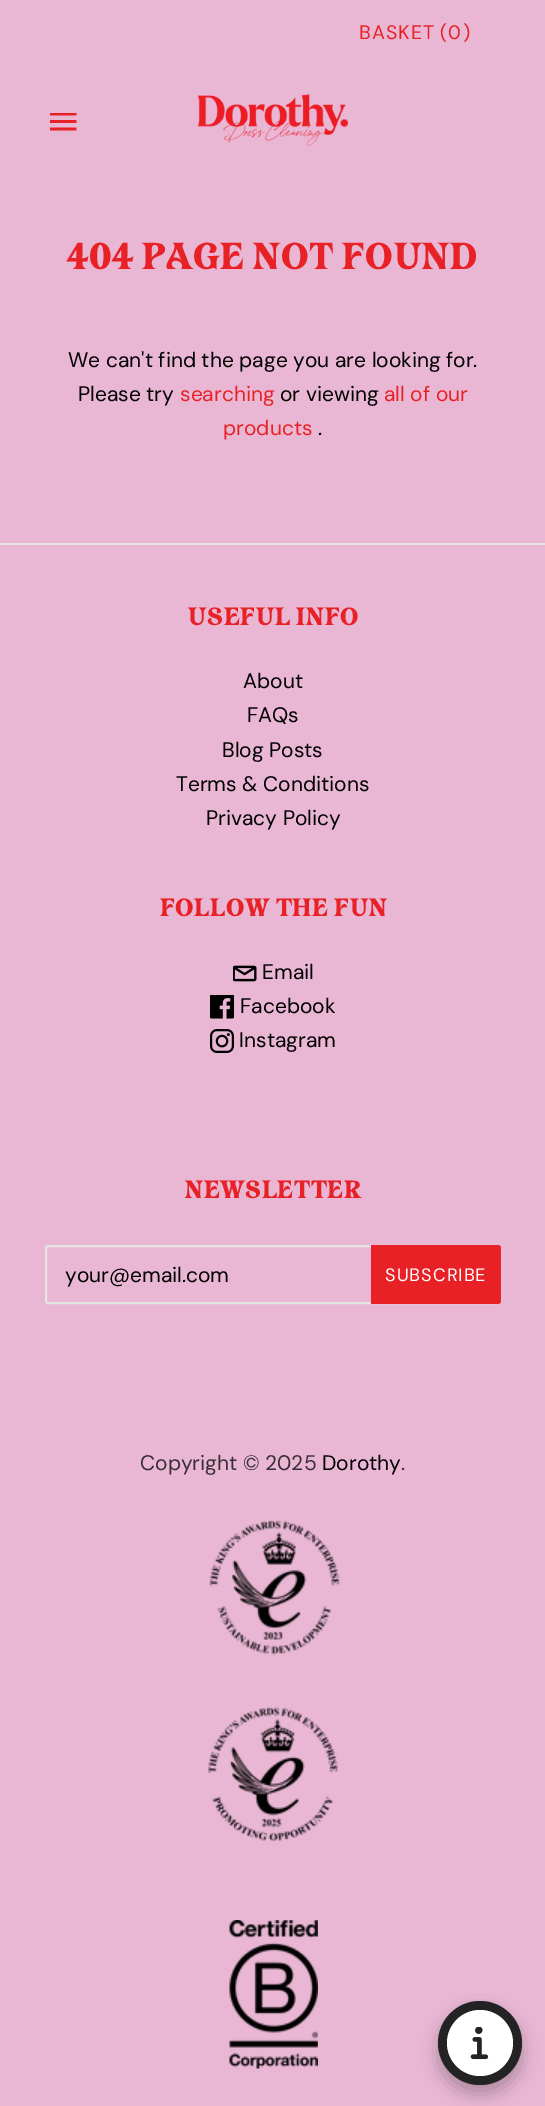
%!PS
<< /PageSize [545 2106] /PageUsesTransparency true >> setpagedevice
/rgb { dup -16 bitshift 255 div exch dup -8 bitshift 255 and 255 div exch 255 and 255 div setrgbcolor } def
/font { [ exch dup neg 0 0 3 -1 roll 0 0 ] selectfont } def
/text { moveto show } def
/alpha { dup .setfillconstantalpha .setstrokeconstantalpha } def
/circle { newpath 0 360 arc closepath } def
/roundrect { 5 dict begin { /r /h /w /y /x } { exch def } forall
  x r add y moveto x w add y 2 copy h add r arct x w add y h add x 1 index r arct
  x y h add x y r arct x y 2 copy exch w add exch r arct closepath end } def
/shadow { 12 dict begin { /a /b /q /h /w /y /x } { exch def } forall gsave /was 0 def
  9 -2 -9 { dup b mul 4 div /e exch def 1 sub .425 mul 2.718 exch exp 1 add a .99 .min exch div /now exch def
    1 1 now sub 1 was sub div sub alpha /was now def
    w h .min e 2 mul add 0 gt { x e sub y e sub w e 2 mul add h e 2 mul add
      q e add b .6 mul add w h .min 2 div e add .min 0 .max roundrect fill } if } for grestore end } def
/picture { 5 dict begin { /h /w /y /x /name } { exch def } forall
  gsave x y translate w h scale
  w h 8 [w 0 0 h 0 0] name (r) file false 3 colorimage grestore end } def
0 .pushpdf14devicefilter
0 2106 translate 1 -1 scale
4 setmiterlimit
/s1 { /DMSans-Regular 21 font 16#000000 rgb } def
/s2 { /DMSans-Regular 21 font 16#E82126 rgb } def
/s3 { /DMSans-Regular 21 font 16#3A2E35 rgb } def
16#E9B7D4 rgb
0 0 545 2106 rectfill
/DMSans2-Regular 19.5 font
16#E82126 rgb
359 39 moveto 1 0 (BASKET) ashow
440 39 moveto 1 0 (\(0) ashow
463 39 moveto 1 0 (\)) ashow
(pic1.raw) 50 113 27 18 picture
(pic2.raw) 198 94 150 53 picture
/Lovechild-Bold 36 font
67 269 moveto 1.75 0 (404 PAGE NOT FOUND) ashow
s1
(We can't find the page you are looking for.) 68 367 text
(Please try) 78 401 text
s2
(searching) 180 401 text
s1
(or viewing) 280 401 text
s2
(all of our) 384 401 text
(products) 223 435 text
s1
(.) 318 435 text
16#E4E4E4 rgb
0 543 545 2 rectfill
/Lovechild-Bold 24 font
16#E82126 rgb
188 625 moveto 1.25 0 (USEFUL INFO) ashow
s1
(About) 243 688 text
(FAQs) 247 722 text
(Blog Posts) 222 757 text
(Terms & Conditions) 176 791 text
(Privacy Policy) 206 825 text
/Lovechild-Bold 24 font
16#E82126 rgb
160 916 moveto 1.25 0 (FOLLOW THE FUN) ashow
(pic3.raw) 233 965 24 17 picture
s1
(Email) 262 979 text
(pic4.raw) 210 995 24 24 picture
(Facebook) 240 1013 text
(pic5.raw) 210 1029 24 24 picture
(Instagram) 239 1047 text
/Lovechild-Bold 24 font
16#E82126 rgb
185 1198 moveto 1.25 0 (NEWSLETTER) ashow
16#E4E4E4 rgb
2 setlinewidth
46 1246 454 57 2 roundrect stroke
s1
(your@email.com) 65 1282 text
16#E82126 rgb
371 1245 moveto 498 1245 lineto 499.5 1245 501 1246.5 501 1248 curveto 501 1301 lineto 501 1302.5 499.5 1304 498 1304 curveto 371 1304 lineto closepath fill
/DMSans2-Regular 18 font
16#FFFFFF rgb
385 1281 moveto 1 0 (SUBSCRIBE) ashow
s3
(Copyright © 2025) 140 1470 text
s1
(Dorothy) 322 1470 text
s3
(.) 401 1470 text
(pic6.raw) 209 1519 131 136 picture
(pic7.raw) 208 1707 130 135 picture
(pic8.raw) 229 1920 89 149 picture
16#000000 rgb
438 2010 84 84 42 9 0.25 shadow
16#232323 rgb
480 2043 42 circle fill
16#FFFFFF rgb
480 2043 33 circle fill
(pic9.raw) 470 2027 19 33 picture
.poppdf14devicefilter showpage
